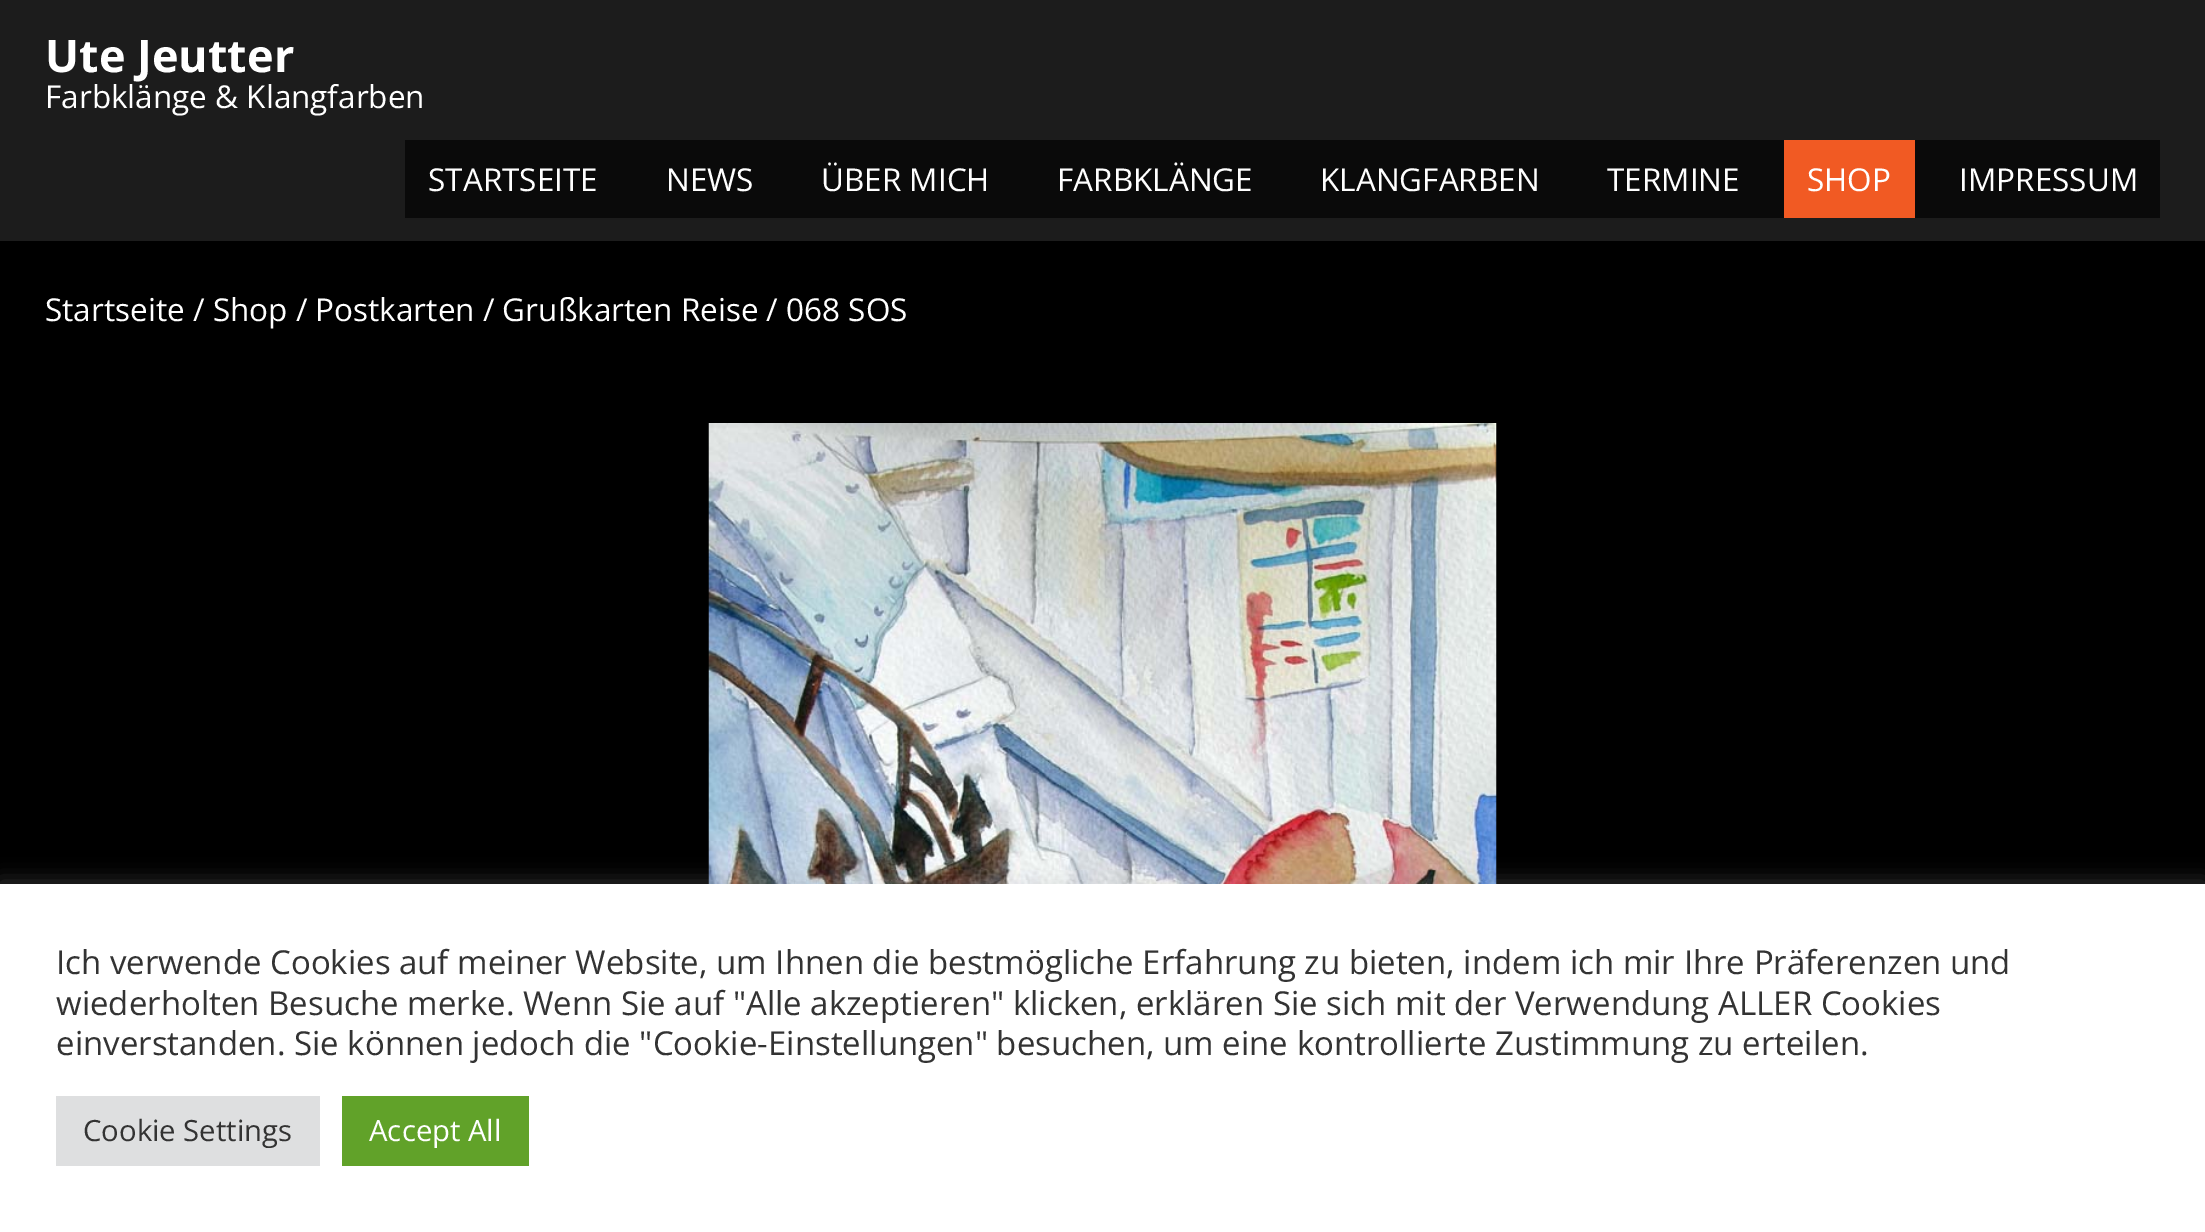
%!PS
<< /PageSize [2205 1232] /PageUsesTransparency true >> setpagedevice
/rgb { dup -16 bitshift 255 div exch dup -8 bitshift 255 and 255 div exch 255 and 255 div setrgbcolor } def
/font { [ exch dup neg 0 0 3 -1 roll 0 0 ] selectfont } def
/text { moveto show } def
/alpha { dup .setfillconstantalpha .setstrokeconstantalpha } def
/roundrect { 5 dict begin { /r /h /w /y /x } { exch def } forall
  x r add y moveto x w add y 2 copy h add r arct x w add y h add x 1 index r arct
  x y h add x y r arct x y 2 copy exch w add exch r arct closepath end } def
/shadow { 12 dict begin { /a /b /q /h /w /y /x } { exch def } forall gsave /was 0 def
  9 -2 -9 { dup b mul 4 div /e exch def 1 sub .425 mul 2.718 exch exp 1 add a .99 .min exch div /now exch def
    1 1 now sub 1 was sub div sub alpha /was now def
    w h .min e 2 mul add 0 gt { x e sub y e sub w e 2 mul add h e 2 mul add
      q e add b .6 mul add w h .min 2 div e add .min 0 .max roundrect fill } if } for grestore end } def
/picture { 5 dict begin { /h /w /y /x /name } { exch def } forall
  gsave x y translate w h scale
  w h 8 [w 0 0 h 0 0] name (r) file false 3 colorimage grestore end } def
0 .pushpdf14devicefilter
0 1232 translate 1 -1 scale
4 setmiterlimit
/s1 { /OpenSans-Bold 45 font 16#FFFFFF rgb } def
/s2 { /OpenSans-Regular 31.5 font 16#FFFFFF rgb } def
/s3 { /OpenSans-Regular 33 font 16#333333 rgb } def
/s4 { /OpenSans-Regular 29.25 font 16#333333 rgb } def
/s5 { /OpenSans-Regular 29.25 font 16#FFFFFF rgb } def
16#000000 rgb
0 0 2205 1232 rectfill
16#1C1C1C rgb
0 0 2205 241 rectfill
s1
(Ute Jeutter) 45 72 text
s2
(Farbklänge & Klangfarben) 45 108 text
16#0A0A0A rgb
405 140 1755 78 rectfill
s2
(STARTSEITE) 428 191 text
(NEWS) 666 191 text
(ÜBER MICH) 821 191 text
(FARBKLÄNGE) 1057 191 text
(KLANGFARBEN) 1320 191 text
(TERMINE) 1607 191 text
16#F15A23 rgb
1784 140 131 78 rectfill
s2
(SHOP) 1807 191 text
(IMPRESSUM) 1959 191 text
(Startseite / Shop / Postkarten / Grußkarten Reise / 068 SOS) 45 321 text
(pic1.raw) 708 423 789 461 picture
16#ACABAB rgb
0 882 2205 349 0 11 0.3 shadow
16#FFFFFF rgb
0 884 2205 348 rectfill
s3
(Ich verwende Cookies auf meiner Website, um Ihnen die bestmögliche Erfahrung zu bieten, indem ich mir Ihre Präferenzen und) 56 974 text
(wiederholten Besuche merke. Wenn Sie auf "Alle akzeptieren" klicken, erklären Sie sich mit der Verwendung ALLER Cookies) 56 1015 text
(einverstanden. Sie können jedoch die "Cookie-Einstellungen" besuchen, um eine kontrollierte Zustimmung zu erteilen.) 56 1055 text
16#DEDFE0 rgb
56 1096 264 70 rectfill
s4
(Cookie Settings) 83 1141 text
16#61A229 rgb
342 1096 187 70 rectfill
s5
(Accept All) 369 1141 text
.poppdf14devicefilter showpage
